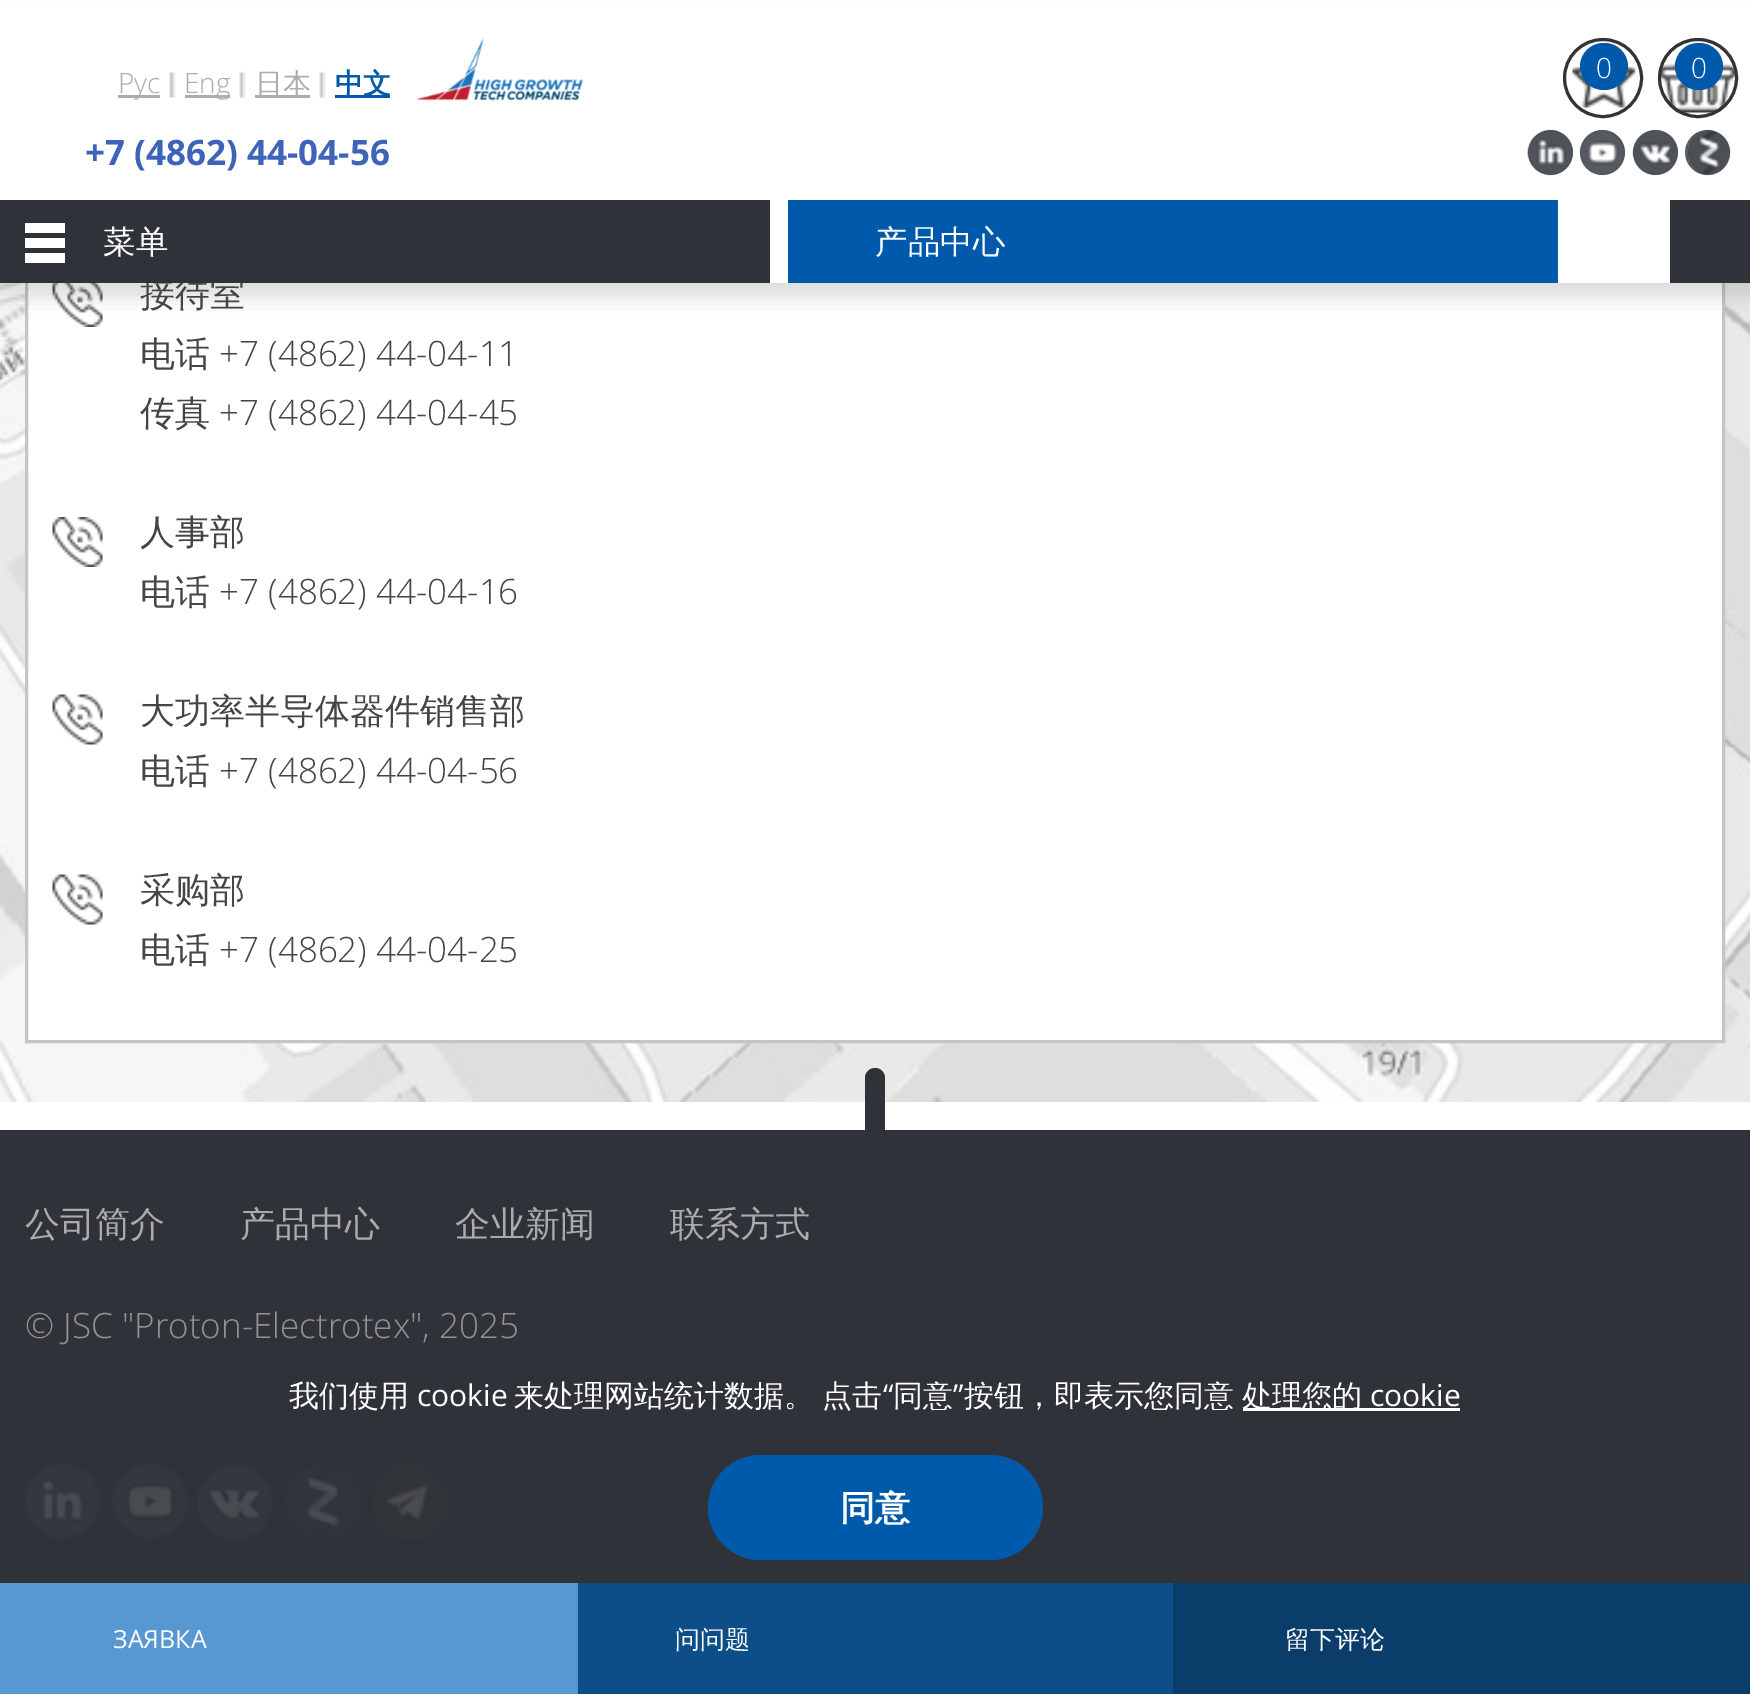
%!PS
<< /PageSize [1750 1694] /PageUsesTransparency true >> setpagedevice
/rgb { dup -16 bitshift 255 div exch dup -8 bitshift 255 and 255 div exch 255 and 255 div setrgbcolor } def
/font { [ exch dup neg 0 0 3 -1 roll 0 0 ] selectfont } def
/text { moveto show } def
/alpha { dup .setfillconstantalpha .setstrokeconstantalpha } def
/circle { newpath 0 360 arc closepath } def
/roundrect { 5 dict begin { /r /h /w /y /x } { exch def } forall
  x r add y moveto x w add y 2 copy h add r arct x w add y h add x 1 index r arct
  x y h add x y r arct x y 2 copy exch w add exch r arct closepath end } def
/shadow { 12 dict begin { /a /b /q /h /w /y /x } { exch def } forall gsave /was 0 def
  9 -2 -9 { dup b mul 4 div /e exch def 1 sub .425 mul 2.718 exch exp 1 add a .99 .min exch div /now exch def
    1 1 now sub 1 was sub div sub alpha /was now def
    w h .min e 2 mul add 0 gt { x e sub y e sub w e 2 mul add h e 2 mul add
      q e add b .6 mul add w h .min 2 div e add .min 0 .max roundrect fill } if } for grestore end } def
/picture { 5 dict begin { /h /w /y /x /name } { exch def } forall
  gsave x y translate w h scale
  w h 8 [w 0 0 h 0 0] name (r) file false 3 colorimage grestore end } def
0 .pushpdf14devicefilter
0 1694 translate 1 -1 scale
4 setmiterlimit
/s1 { /WenQuanYiZenHei-Medium 35 font 16#454545 rgb } def
/s2 { /OpenSans-Light 28 font 16#ACACAC rgb } def
/s3 { /WenQuanYiZenHei-Medium 28 font 16#ACACAC rgb } def
/s4 { /WenQuanYiZenHei-Bold 28 font 16#005AAB rgb } def
/s5 { /OpenSans-Light 28 font 16#FFFFFF rgb } def
/s6 { /OpenSans-Bold 35 font 16#3E64B9 rgb } def
/s7 { /WenQuanYiZenHei-Medium 32.5 font 16#FFFFFF rgb } def
/s8 { /OpenSans-Regular 25 font 16#FFFFFF rgb } def
/s9 { /OpenSans-Light 35 font 16#454545 rgb } def
/s10 { /WenQuanYiZenHei-Medium 35 font 16#ACACAC rgb } def
/s11 { /OpenSans-Light 35 font 16#929292 rgb } def
/s12 { /WenQuanYiZenHei-Medium 30 font 16#FFFFFF rgb } def
/s13 { /OpenSans-Regular 30 font 16#FFFFFF rgb } def
/s14 { /WenQuanYiZenHei-Bold 35 font 16#FFFFFF rgb } def
/s15 { /WenQuanYiZenHei-Medium 25 font 16#FFFFFF rgb } def
16#FFFFFF rgb
0 0 1750 1694 rectfill
(pic13.raw) 0 283 1750 819 picture
28 283 1694 757 rectfill
16#C5C5C5 rgb
3 setlinewidth
26.5 66.5 1697 975 rectstroke
(pic10.raw) 52 283 51 44 picture
16#000000 rgb
-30 15 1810 283 0 10 0.13 shadow
s1
(接待室) 140 306 text
16#FFFFFF rgb
0 1 1750 282 rectfill
16#ACACAC rgb
118 95 42 3 rectfill
s2
(Рус) 118 93 text
(pic1.raw) 169 72 7 26 picture
185 95 45 3 rectfill
(Eng) 184 93 text
(pic2.raw) 239 71 7 28 picture
255 95 55 3 rectfill
s3
(日本) 255 93 text
(pic2.raw) 319 71 7 28 picture
16#005AAB rgb
335 95 55 3 rectfill
s4
(中文) 335 93 text
(pic3.raw) 416 37 168 64 picture
(pic4.raw) 1572 66 64 42 picture
16#333333 rgb
1603 78 38.5 circle stroke
16#0059AB rgb
1580 43 48 47 23.5 roundrect fill
s5
(0) 1596 78 text
(pic5.raw) 1659 44 76 69 picture
16#333333 rgb
1698 78 38.5 circle stroke
16#0059AB rgb
1675 43 48 47 23.5 roundrect fill
s5
(0) 1691 78 text
s6
(+7 \(4862\) 44-04-56) 85 165 text
16#434B5B rgb
1550.5 152.5 22.5 circle fill
(pic6.raw) 1527 129 46 47 picture
1602.5 152.5 22.5 circle fill
(pic7.raw) 1579 129 47 47 picture
1655.5 152.5 22.5 circle fill
(pic8.raw) 1632 129 46 47 picture
1707.5 152.5 22.5 circle fill
(pic9.raw) 1684 129 47 47 picture
16#2F3238 rgb
0 200 770 83 rectfill
16#FFFFFF rgb
25 253 40 10 rectfill
25 238 40 10 rectfill
25 223 40 10 rectfill
s7
(菜单) 103 253 text
16#0059AB rgb
788 200 770 83 rectfill
s7
(产品中心) 875 253 text
16#5798D2 rgb
0 1583 578 111 rectfill
s8
(ЗАЯВКА) 113 1648 text
s1
(电话) 140 366 text
s9
(+7 \(4862\) 44-04-11) 219 366 text
s1
(传真) 140 425 text
s9
(+7 \(4862\) 44-04-45) 219 425 text
(pic11.raw) 52 517 51 50 picture
s1
(人事部) 140 544 text
(电话) 140 604 text
s9
(+7 \(4862\) 44-04-16) 219 604 text
(pic12.raw) 52 694 51 51 picture
s1
(大功率半导体器件销售部) 140 723 text
(电话) 140 783 text
s9
(+7 \(4862\) 44-04-56) 219 783 text
(pic12.raw) 52 874 51 51 picture
s1
(采购部) 140 902 text
(电话) 140 962 text
s9
(+7 \(4862\) 44-04-25) 219 962 text
16#2F3238 rgb
1670 200 80 83 rectfill
875 1068 moveto 880.5 1068 885 1072.5 885 1078 curveto 885 1130 lineto 865 1130 lineto 865 1078 lineto 865 1072.5 869.5 1068 875 1068 curveto closepath fill
0 1130 1750 453 rectfill
s10
(公司简介) 25 1236 text
(产品中心) 240 1236 text
(企业新闻) 455 1236 text
(联系方式) 670 1236 text
s11
(© JSC "Proton-Eleсtrotex", 2025) 25 1338 text
(pic14.raw) 25 1464 75 76 picture
(pic15.raw) 112 1464 76 76 picture
(pic16.raw) 197 1464 76 76 picture
(pic17.raw) 285 1464 75 76 picture
(pic18.raw) 372 1464 76 76 picture
s12
(我们使用) 289 1406 text
s13
(cookie) 417 1406 text
/WenQuanYiZenHei-Medium 30 font
514 1406 moveto -1 0 32 (来处理网站统计数据。 点击) widthshow
s13
(“) 883 1406 text
s12
(同意) 893 1406 text
s13
(”) 953 1406 text
s12
(按钮，即表示您同意) 964 1406 text
1243 1408 217 3 rectfill
(处理您的) 1242 1406 text
s13
(cookie) 1370 1406 text
16#005AAB rgb
708 1455 335 105 52.5 roundrect fill
s14
(同意) 840 1520 text
16#0E4E88 rgb
578 1583 595 111 rectfill
s15
(问问题) 675 1648 text
16#0B3D6A rgb
1173 1583 577 111 rectfill
s15
(留下评论) 1285 1648 text
.poppdf14devicefilter showpage
